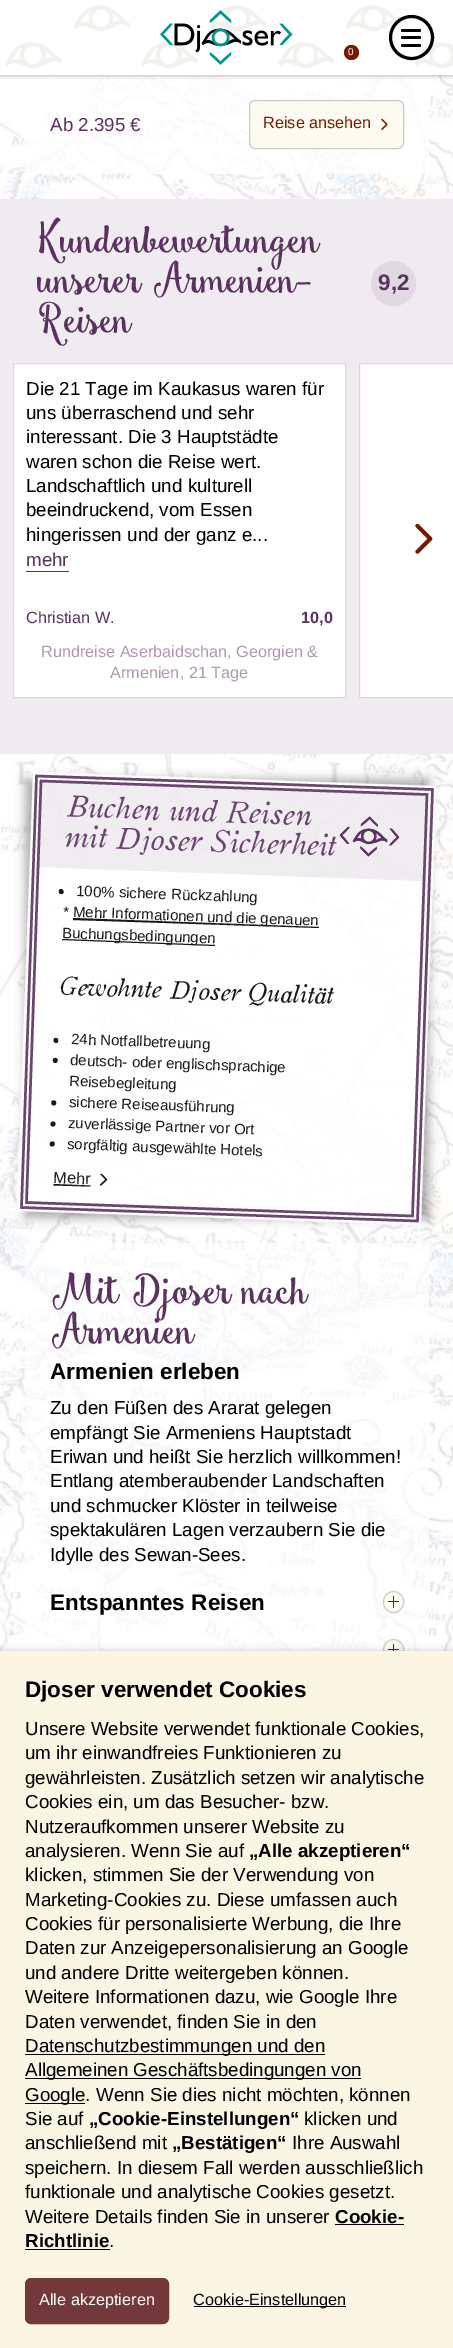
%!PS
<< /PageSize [453 2348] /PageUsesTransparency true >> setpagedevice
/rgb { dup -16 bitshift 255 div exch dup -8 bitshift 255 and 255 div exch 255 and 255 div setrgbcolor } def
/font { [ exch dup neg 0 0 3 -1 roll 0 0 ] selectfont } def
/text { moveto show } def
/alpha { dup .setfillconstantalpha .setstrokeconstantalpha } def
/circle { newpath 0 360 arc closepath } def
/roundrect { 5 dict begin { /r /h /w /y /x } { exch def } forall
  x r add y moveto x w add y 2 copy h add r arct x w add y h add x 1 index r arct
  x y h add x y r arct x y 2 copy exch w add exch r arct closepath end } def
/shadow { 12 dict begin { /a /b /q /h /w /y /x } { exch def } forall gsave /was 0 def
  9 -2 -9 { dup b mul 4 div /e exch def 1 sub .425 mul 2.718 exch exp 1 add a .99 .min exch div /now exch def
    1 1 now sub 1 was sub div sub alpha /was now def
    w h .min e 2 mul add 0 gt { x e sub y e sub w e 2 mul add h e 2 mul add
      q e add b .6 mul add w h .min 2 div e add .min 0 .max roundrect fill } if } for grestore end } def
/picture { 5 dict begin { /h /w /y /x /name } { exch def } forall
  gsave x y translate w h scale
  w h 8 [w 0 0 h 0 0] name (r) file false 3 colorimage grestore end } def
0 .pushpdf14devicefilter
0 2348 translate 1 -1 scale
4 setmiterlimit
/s1 { /LiberationSans-Regular 10 font 16#FFFFFF rgb } def
/s2 { /LiberationSans-Regular 18.75 font 16#5B325F rgb } def
/s3 { /LiberationSans-Regular 16.25 font 16#781900 rgb } def
/s4 { /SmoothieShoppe-Regular 40 font 16#5B325F rgb } def
/s5 { /LiberationSans-Bold 22.5 font 16#5B325F rgb } def
/s6 { /LiberationSans-Regular 18.75 font 16#000000 rgb } def
/s7 { /LiberationSans-Regular 16.25 font 16#5B325F rgb } def
/s8 { /LiberationSans-Bold 16.25 font 16#5B325F rgb } def
/s9 { /LiberationSans-Regular 16.25 font 16#AD99AF rgb } def
/s10 { /LiberationSans-Bold 22.5 font 16#000000 rgb } def
/s11 { /LiberationSans-Bold 18.75 font 16#000000 rgb } def
/s12 { /LiberationSans-Regular 16.25 font 16#FFFFFF rgb } def
/s13 { /LiberationSans-Regular 16.25 font 16#000000 rgb } def
16#FFFFFF rgb
0 0 453 2348 rectfill
(pic3.raw) 0 75 453 1576 picture
0.8 alpha
25 75 404 99 rectfill
1 alpha
16#000000 rgb
0 0 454 75 0 2.5 0.35 shadow
16#FFFFFF rgb
0 0 453 75 rectfill
(pic1.raw) 5 5 448 64 picture
(pic2.raw) 160 10 133 55 picture
16#781900 rgb
351.5 52.5 7.5 circle fill
s1
(0) 348 55 text
16#000000 rgb
3 setlinewidth
411.5 37.5 21 circle stroke
401 29 20 3 1.5 roundrect fill
401 36 20 3 1.5 roundrect fill
401 44 20 3 1.5 roundrect fill
s2
(Ab 2.395 €) 50 131 text
16#FDFAF2 rgb
249 100 155 49 6 roundrect fill
(pic4.raw) 381 119 7 11 picture
16#CCCCCC rgb
1 setlinewidth
249.5 100.5 154 48 5.5 roundrect stroke
s3
(Reise ansehen) 263 128 text
16#EFEBF0 rgb
0 199 453 555 rectfill
s4
(Kundenbewertungen) 38 251 text
(unserer Armenien-) 38 291 text
(Reisen) 38 331 text
16#E0D9E2 rgb
393.5 283.5 22.5 circle fill
s5
(9,2) 378 290 text
16#FFFFFF rgb
13.5 363.5 moveto 345.5 363.5 lineto 345.5 697.5 lineto 13.5 697.5 lineto closepath gsave fill grestore
16#DED6DF rgb
stroke
s6
(Die 21 Tage im Kaukasus waren für) 26 395 text
(uns überraschend und sehr) 26 419 text
(interessant. Die 3 Hauptstädte) 26 443 text
(waren schon die Reise wert.) 26 468 text
(Landschaftlich und kulturell) 26 492 text
(beeindruckend, vom Essen) 26 516 text
(hingerissen und der ganz e...) 26 541 text
s2
(mehr) 26 566 text
26 571 43 1 rectfill
s7
(Christian W.) 26 623 text
s8
(10,0) 301 623 text
s9
(Rundreise Aserbaidschan, Georgien &) 41 657 text
(Armenien, 21 Tage) 110 678 text
16#FFFFFF rgb
359.5 363.5 moveto 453.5 363.5 lineto 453.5 697.5 lineto 359.5 697.5 lineto closepath gsave fill grestore
16#DED6DF rgb
stroke
(pic5.raw) 415 524 18 30 picture
gsave
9 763 moveto 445 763 lineto 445 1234 lineto 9 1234 lineto closepath 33 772 moveto 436.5 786 lineto 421 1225 lineto 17.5 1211 lineto closepath eoclip newpath
16#000000 rgb
25 779 404 439 0 5 0.32 shadow
grestore
0.9 alpha
16#FFFFFF rgb
33 772 moveto 436 786 lineto 421 1225 lineto 17 1211 lineto closepath fill
1 alpha
16#191919 rgb
61 889 moveto 64.5 889.5 64.5 894.5 61 894 curveto 58 894 58 889 61 889 curveto closepath fill
/LiberationSans-Regular 15 font
16#1A1A1A rgb
gsave 76 896 translate 2 rotate 0 0 moveto (100% sichere Rückzahlung) show grestore
gsave 63 917 translate 2 rotate 0 0 moveto (*) show grestore
0.9 alpha
16#000000 rgb
73 918 moveto 319 927 lineto 319 928 lineto 73 920 lineto closepath fill
1 alpha
16#1A1A1A rgb
gsave 73 917 translate 2 rotate 0 0 moveto (Mehr Informationen und die genauen) show grestore
16#191919 rgb
62 939 moveto 215 945 lineto 215 946 lineto 62 940 lineto closepath fill
16#1A1A1A rgb
gsave 62 938 translate 2 rotate 0 0 moveto (Buchungsbedingungen) show grestore
/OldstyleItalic-Regular 25 font
gsave 60 994 translate 2 rotate 0 0 moveto (Gewohnte Djoser Qualität) show grestore
16#191919 rgb
56 1038 moveto 59 1038 59 1043 56 1043 curveto 52.5 1042.5 53 1037.5 56 1038 curveto closepath fill
/LiberationSans-Regular 15 font
16#1A1A1A rgb
gsave 71 1044 translate 2 rotate 0 0 moveto (24h Notfallbetreuung) show grestore
55.5 1058 moveto 58.5 1058 58.5 1063 55 1063 curveto 52 1062.5 52 1057.5 55.5 1058 curveto closepath fill
gsave 70 1065 translate 2 rotate 0 0 moveto (deutsch- oder englischsprachige) show grestore
gsave 69 1086 translate 2 rotate 0 0 moveto (Reisebegleitung) show grestore
16#191919 rgb
54 1100.5 moveto 57 1100.5 57 1105.5 53.5 1105.5 curveto 50.5 1105 50.5 1100 54 1100.5 curveto closepath fill
16#1A1A1A rgb
gsave 69 1107 translate 2 rotate 0 0 moveto (sichere Reiseausführung) show grestore
16#191919 rgb
53 1121.5 moveto 56.5 1121.5 56 1126.5 53 1126.5 curveto 49.5 1126.5 50 1121.5 53 1121.5 curveto closepath fill
16#1A1A1A rgb
gsave 68 1128 translate 2 rotate 0 0 moveto (zuverlässige Partner vor Ort) show grestore
16#191919 rgb
52.5 1141.5 moveto 55.5 1141.5 55.5 1146.5 52 1146.5 curveto 49 1146.5 49 1141.5 52.5 1141.5 curveto closepath fill
16#1A1A1A rgb
gsave 67 1149 translate 2 rotate 0 0 moveto (sorgfältig ausgewählte Hotels) show grestore
(pic7.raw) 99 1173 9 13 picture
16#191919 rgb
53.5 1184 moveto 90.5 1185.5 lineto 90.5 1186.5 lineto 53.5 1185.5 lineto closepath fill
/LiberationSans-Regular 16.25 font
16#1A1A1A rgb
gsave 53 1183 translate 2 rotate 0 0 moveto (Mehr) show grestore
0.9 alpha
16#5B325F rgb
2.5 setlinewidth
36.5 776 moveto 432.5 789.5 lineto 417.5 1221 lineto 21.5 1207.5 lineto closepath stroke
0.09 alpha
42 782 moveto 426 796 lineto 423 881 lineto 39 867 lineto closepath fill
/OldstyleItalic-Regular 30 font
1 alpha
16#6A456E rgb
gsave 66 816 translate 2 rotate 0 0 moveto (Buchen und Reisen) show grestore
gsave 65 846 translate 2 rotate 0 0 moveto (mit Djoser Sicherheit) show grestore
(pic6.raw) 339 816 61 41 picture
0.9 alpha
16#5B325F rgb
41 781 moveto 427 794.5 lineto 412.5 1216 lineto 26.5 1202.5 lineto closepath stroke
0.65 alpha
16#FFFFFF rgb
25 1243 404 408 rectfill
1 alpha
s4
(Mit Djoser nach) 50 1302 text
(Armenien) 50 1342 text
s10
(Armenien erleben) 50 1379 text
s6
(Zu den Füßen des Ararat gelegen) 50 1414 text
(empfängt Sie Armeniens Hauptstadt) 50 1439 text
(Eriwan und heißt Sie herzlich willkommen!) 50 1463 text
(Entlang atemberaubender Landschaften) 50 1487 text
(und schmucker Klöster in teilweise) 50 1512 text
(spektakulären Lagen verzaubern Sie die) 50 1536 text
(Idylle des Sewan-Sees.) 50 1561 text
s10
(Entspanntes Reisen) 50 1610 text
16#FDFAF2 rgb
383.5 1591.5 20 21 10 roundrect gsave fill grestore
16#CCCCCC rgb
1 setlinewidth
stroke
16#781900 rgb
388 1601 11 1 rectfill
393 1596 1 12 rectfill
16#FDFAF2 rgb
393.5 1649.5 10 circle gsave fill grestore
16#CCCCCC rgb
stroke
16#781900 rgb
388 1649 11 1 rectfill
393 1644 1 11 rectfill
16#000000 rgb
0 1651 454 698 0 4 0.2 shadow
16#FBF5E4 rgb
0 1651 453 697 rectfill
s10
(Djoser verwendet Cookies) 25 1697 text
s6
(Unsere Website verwendet funktionale Cookies,) 25 1735 text
(um ihr einwandfreies Funktionieren zu) 25 1759 text
(gewährleisten. Zusätzlich setzen wir analytische) 25 1784 text
(Cookies ein, um das Besucher- bzw.) 25 1808 text
(Nutzeraufkommen unserer Website zu) 25 1833 text
(analysieren. Wenn Sie auf) 25 1857 text
s11
(„Alle akzeptieren“) 249 1857 text
s6
(klicken, stimmen Sie der Verwendung von) 25 1881 text
(Marketing-Cookies zu. Diese umfassen auch) 25 1906 text
(Cookies für personalisierte Werbung, die Ihre) 25 1930 text
(Daten zur Anzeigepersonalisierung an Google) 25 1954 text
(und andere Dritte weitergeben können.) 25 1979 text
(Weitere Informationen dazu, wie Google Ihre) 25 2003 text
(Daten verwendet, finden Sie in den) 25 2028 text
25 2054 300 1 rectfill
(Datenschutzbestimmungen und den) 25 2052 text
25 2078 336 1 rectfill
(Allgemeinen Geschäftsbedingungen von) 25 2076 text
25 2103 60 1 rectfill
(Google. Wenn Sie dies nicht möchten, können) 25 2101 text
(Sie auf) 25 2125 text
s11
(„Cookie-Einstellungen“) 89 2125 text
s6
(klicken und) 304 2125 text
(anschließend mit) 25 2149 text
s11
(„Bestätigen“) 172 2149 text
s6
(Ihre Auswahl) 292 2149 text
(speichern. In diesem Fall werden ausschließlich) 25 2174 text
(funktionale und analytische Cookies gesetzt.) 25 2198 text
(Weitere Details finden Sie in unserer) 25 2223 text
s11
(Cookie-) 335 2223 text
335 2224 69 1 rectfill
(Richtlinie) 25 2247 text
25 2249 85 1 rectfill
s6
(.) 109 2247 text
16#73393A rgb
25.5 2278.5 143 45 5.5 roundrect gsave fill grestore
stroke
s12
(Alle akzeptieren) 39 2305 text
16#000000 rgb
194 2306 152 1 rectfill
(Cookie-Einstellungen) 193 2305 text
.poppdf14devicefilter showpage
